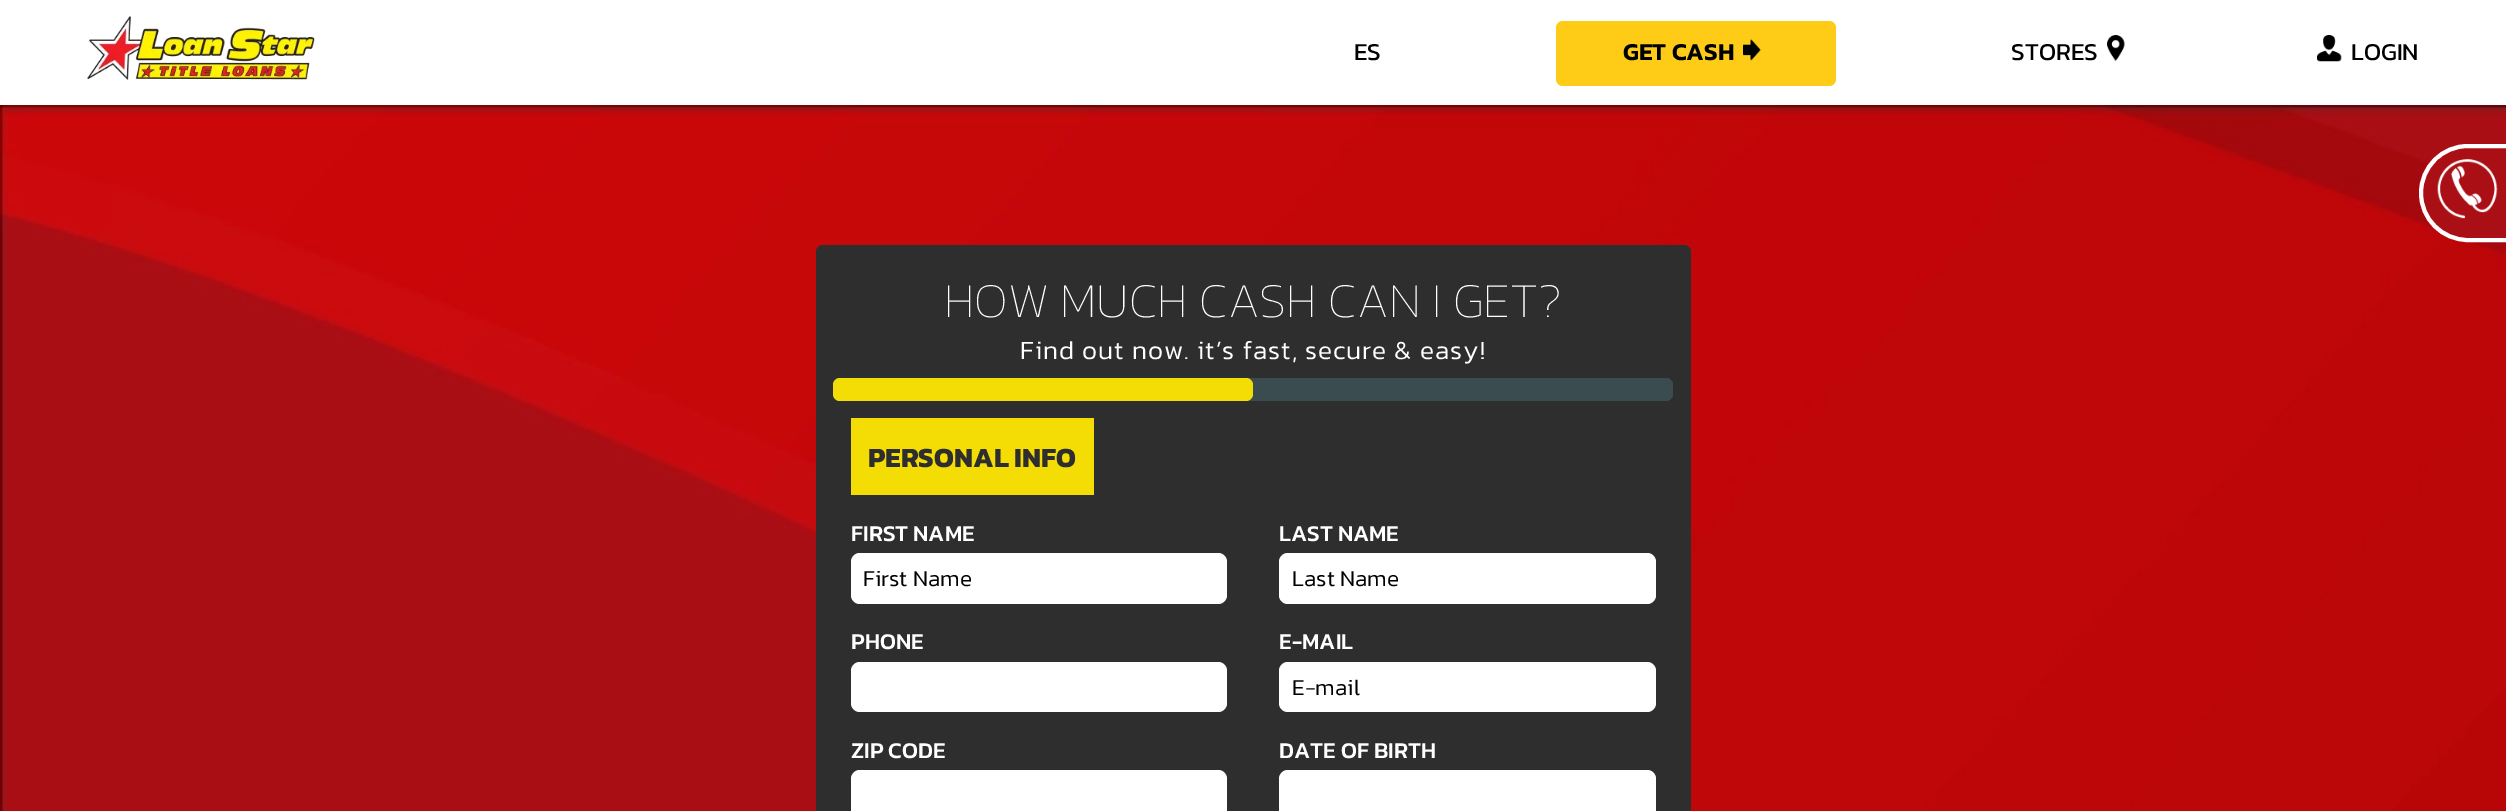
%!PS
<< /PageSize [2506 811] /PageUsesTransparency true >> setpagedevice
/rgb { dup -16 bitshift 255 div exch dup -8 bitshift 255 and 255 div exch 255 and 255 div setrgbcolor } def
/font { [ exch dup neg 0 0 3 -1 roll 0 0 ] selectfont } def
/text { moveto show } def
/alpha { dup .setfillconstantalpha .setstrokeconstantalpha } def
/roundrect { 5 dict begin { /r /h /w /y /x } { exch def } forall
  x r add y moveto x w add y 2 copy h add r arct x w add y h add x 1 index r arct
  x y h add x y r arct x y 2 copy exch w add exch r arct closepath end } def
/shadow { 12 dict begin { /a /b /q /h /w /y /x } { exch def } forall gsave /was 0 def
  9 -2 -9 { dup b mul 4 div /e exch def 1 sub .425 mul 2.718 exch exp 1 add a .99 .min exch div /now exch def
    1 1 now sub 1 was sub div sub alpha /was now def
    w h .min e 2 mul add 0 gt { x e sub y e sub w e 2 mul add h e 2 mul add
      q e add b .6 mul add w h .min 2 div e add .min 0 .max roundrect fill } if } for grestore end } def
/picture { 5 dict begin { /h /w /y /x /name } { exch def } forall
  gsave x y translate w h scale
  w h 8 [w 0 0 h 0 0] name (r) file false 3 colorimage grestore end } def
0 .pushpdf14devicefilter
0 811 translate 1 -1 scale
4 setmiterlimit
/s1 { /Kanit-Regular 24.5 font 16#000000 rgb } def
/s2 { /Kanit-SemiBold 24.5 font 16#000000 rgb } def
/s3 { /Kanit-ExtraLight 49 font 16#FFFFFF rgb } def
/s4 { /Kanit-Bold 28 font 16#2E2E2E rgb } def
/s5 { /Kanit-Medium 22.75 font 16#FFFFFF rgb } def
/s6 { /Kanit-Light 22.75 font 16#000000 rgb } def
16#FFFFFF rgb
0 0 2506 811 rectfill
(pic6.raw) 0 105 2506 706 picture
gsave
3 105 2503 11 rectclip
16#232323 rgb
7 7 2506 105 0 3.5 0.16 shadow
grestore
(pic1.raw) 87 16 228 64 picture
s1
(ES) 1354 60 text
16#FECC16 rgb
1556 21 280 65 7 roundrect fill
s2
(GET CASH) 1623 60 text
(pic2.raw) 1743 39 18 22 picture
s1
(STORES) 2011 60 text
(pic3.raw) 2107 35 18 27 picture
(pic4.raw) 2317 35 25 27 picture
(LOGIN) 2351 60 text
16#AA0F15 rgb
2421 146 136 94 47 roundrect gsave fill grestore
16#FFFFFF rgb
4 setlinewidth
stroke
(pic5.raw) 2437 159 61 60 picture
16#2E2E2E rgb
816 245 875 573 7 roundrect fill
s3
(HOW MUCH CASH CAN I GET?) 944 317 text
/Kanit-Light 26.25 font
1020 359 moveto 1.05 0 (Find out now. it’s fast, secure & easy!) ashow
16#3A4C4F rgb
833 378 840 23 7 roundrect fill
16#F3DD04 rgb
833 378 420 23 7 roundrect fill
851 418 243 77 rectfill
s4
(PERSONAL INFO) 868 467 text
s5
(FIRST NAME) 851 541 text
851 553 376 51 9 roundrect fill
s6
(First Name) 863 586 text
s5
(LAST NAME) 1279 541 text
1279 553 377 51 9 roundrect fill
s6
(Last Name) 1292 586 text
s5
(PHONE) 851 649 text
851 662 376 50 9 roundrect fill
(E-MAIL) 1279 649 text
1279 662 377 50 9 roundrect fill
s6
(E-mail) 1292 695 text
s5
(ZIP CODE) 851 758 text
851 770 376 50 9 roundrect fill
(DATE OF BIRTH) 1279 758 text
1279 770 377 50 9 roundrect fill
.poppdf14devicefilter showpage
